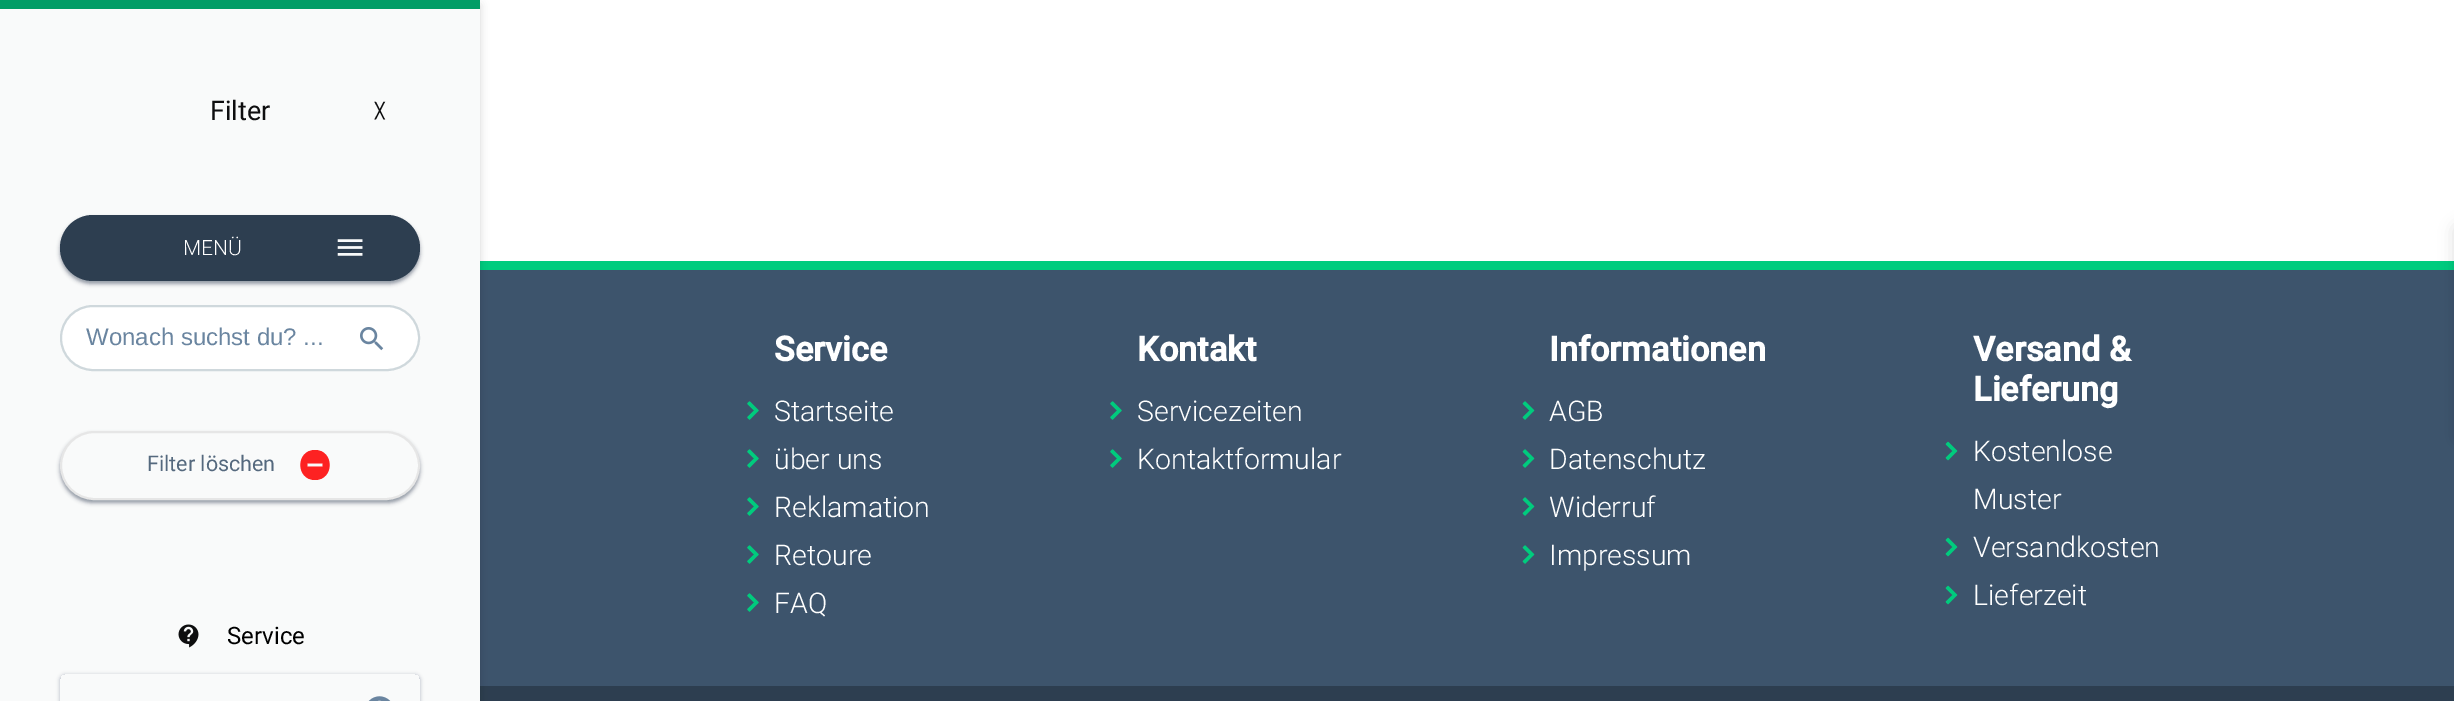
%!PS
<< /PageSize [2454 701] /PageUsesTransparency true >> setpagedevice
/rgb { dup -16 bitshift 255 div exch dup -8 bitshift 255 and 255 div exch 255 and 255 div setrgbcolor } def
/font { [ exch dup neg 0 0 3 -1 roll 0 0 ] selectfont } def
/text { moveto show } def
/alpha { dup .setfillconstantalpha .setstrokeconstantalpha } def
/roundrect { 5 dict begin { /r /h /w /y /x } { exch def } forall
  x r add y moveto x w add y 2 copy h add r arct x w add y h add x 1 index r arct
  x y h add x y r arct x y 2 copy exch w add exch r arct closepath end } def
/shadow { 12 dict begin { /a /b /q /h /w /y /x } { exch def } forall gsave /was 0 def
  9 -2 -9 { dup b mul 4 div /e exch def 1 sub .425 mul 2.718 exch exp 1 add a .99 .min exch div /now exch def
    1 1 now sub 1 was sub div sub alpha /was now def
    w h .min e 2 mul add 0 gt { x e sub y e sub w e 2 mul add h e 2 mul add
      q e add b .6 mul add w h .min 2 div e add .min 0 .max roundrect fill } if } for grestore end } def
/picture { 5 dict begin { /h /w /y /x /name } { exch def } forall
  gsave x y translate w h scale
  w h 8 [w 0 0 h 0 0] name (r) file false 3 colorimage grestore end } def
0 .pushpdf14devicefilter
0 701 translate 1 -1 scale
4 setmiterlimit
/s1 { /Roboto-Regular 27 font 16#0E0E0F rgb } def
/s2 { /DejaVuSans-Bold 15 font 16#0E0E0F rgb } def
/s3 { /Roboto-Light 21 font 16#FFFFFF rgb } def
/s4 { /LiberationSans-Regular 24 font 16#6A85A0 rgb } def
/s5 { /Roboto-Regular 21.5 font 16#55697E rgb } def
/s6 { /Roboto-Regular 24 font 16#000000 rgb } def
/s7 { /Roboto-Bold 34.25 font 16#FFFFFF rgb } def
/s8 { /Roboto-Light 28.5 font 16#FFFFFF rgb } def
16#FFFFFF rgb
0 0 2454 701 rectfill
16#3D546C rgb
480 270 1974 416 rectfill
16#00CC7E rgb
480 261 1974 9 rectfill
16#2D3E50 rgb
480 686 1974 15 rectfill
16#000000 rgb
0 5 480 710 0 4.5 0.16 shadow
16#F9FAFA rgb
0 9 480 692 rectfill
16#009D66 rgb
0 0 480 9 rectfill
s1
(Filter) 210 120 text
s2
(╳) 375 116 text
16#2D3E50 rgb
60 218 360 66 33 2 0.5 shadow
60 215 360 66 33 roundrect fill
s3
(MENÜ) 183 255 text
(pic1.raw) 337 239 26 17 picture
61 306 358 64 32 roundrect gsave fill grestore
16#CFD8DC rgb
2 setlinewidth
stroke
s4
(Wonach suchst du? ...) 86 345 text
(pic2.raw) 360 327 24 24 picture
gsave
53 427 moveto 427 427 lineto 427 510 lineto 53 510 lineto closepath 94.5 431 moveto 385.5 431 lineto 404.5 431 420 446.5 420 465.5 curveto 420 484.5 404.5 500 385.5 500 curveto 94.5 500 lineto 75.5 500 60 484.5 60 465.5 curveto 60 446.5 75.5 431 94.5 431 curveto closepath eoclip newpath
16#2D3E50 rgb
60 434 360 69 34.5 2 0.5 shadow
grestore
16#E6E6E6 rgb
61 432 358 67 33.5 roundrect stroke
s5
(Filter löschen) 147 471 text
16#FD2222 rgb
315 450 moveto 295.5 450 295.5 480 315 480 curveto 334.5 480 334.5 450 315 450 curveto closepath 322.5 466.5 moveto 307.5 466.5 lineto 307.5 463.5 lineto 322.5 463.5 lineto closepath fill
(pic3.raw) 178 624 21 24 picture
s6
(Service) 227 644 text
gsave
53 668 moveto 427 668 lineto 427 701 lineto 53 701 lineto closepath 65 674 moveto 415 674 lineto 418 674 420 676 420 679 curveto 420 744 lineto 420 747 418 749 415 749 curveto 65 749 lineto 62 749 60 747 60 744 curveto 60 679 lineto 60 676 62 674 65 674 curveto closepath eoclip newpath
16#3D546C rgb
60 675 360 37 5 2 0.4 shadow
grestore
(pic4.raw) 368 696 23 5 picture
s7
(Service) 774 361 text
(pic5.raw) 747 401 12 19 picture
s8
(Startseite) 774 421 text
(pic5.raw) 747 449 12 19 picture
(über uns) 774 469 text
(pic5.raw) 747 497 12 19 picture
(Reklamation) 774 517 text
(pic6.raw) 747 545 12 19 picture
(Retoure) 774 565 text
(pic5.raw) 747 593 12 19 picture
(FAQ) 774 613 text
s7
(Kontakt) 1137 361 text
(pic5.raw) 1110 401 12 19 picture
s8
(Servicezeiten) 1137 421 text
(pic5.raw) 1110 449 12 19 picture
(Kontaktformular) 1137 469 text
s7
(Informationen) 1549 361 text
(pic7.raw) 1522 401 13 19 picture
s8
(AGB) 1549 421 text
(pic7.raw) 1522 449 13 19 picture
(Datenschutz) 1549 469 text
(pic7.raw) 1522 497 13 19 picture
(Widerruf) 1549 517 text
(pic8.raw) 1522 545 13 19 picture
(Impressum) 1549 565 text
s7
(Versand &) 1973 361 text
(Lieferung) 1973 401 text
(pic9.raw) 1945 441 13 20 picture
s8
(Kostenlose) 1973 461 text
(Muster) 1973 509 text
(pic10.raw) 1945 537 13 20 picture
(Versandkosten) 1973 557 text
(pic9.raw) 1945 585 13 20 picture
(Lieferzeit) 1973 605 text
16#000000 rgb
2454 225 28 218 5 7.5 0.12 shadow
.poppdf14devicefilter showpage
